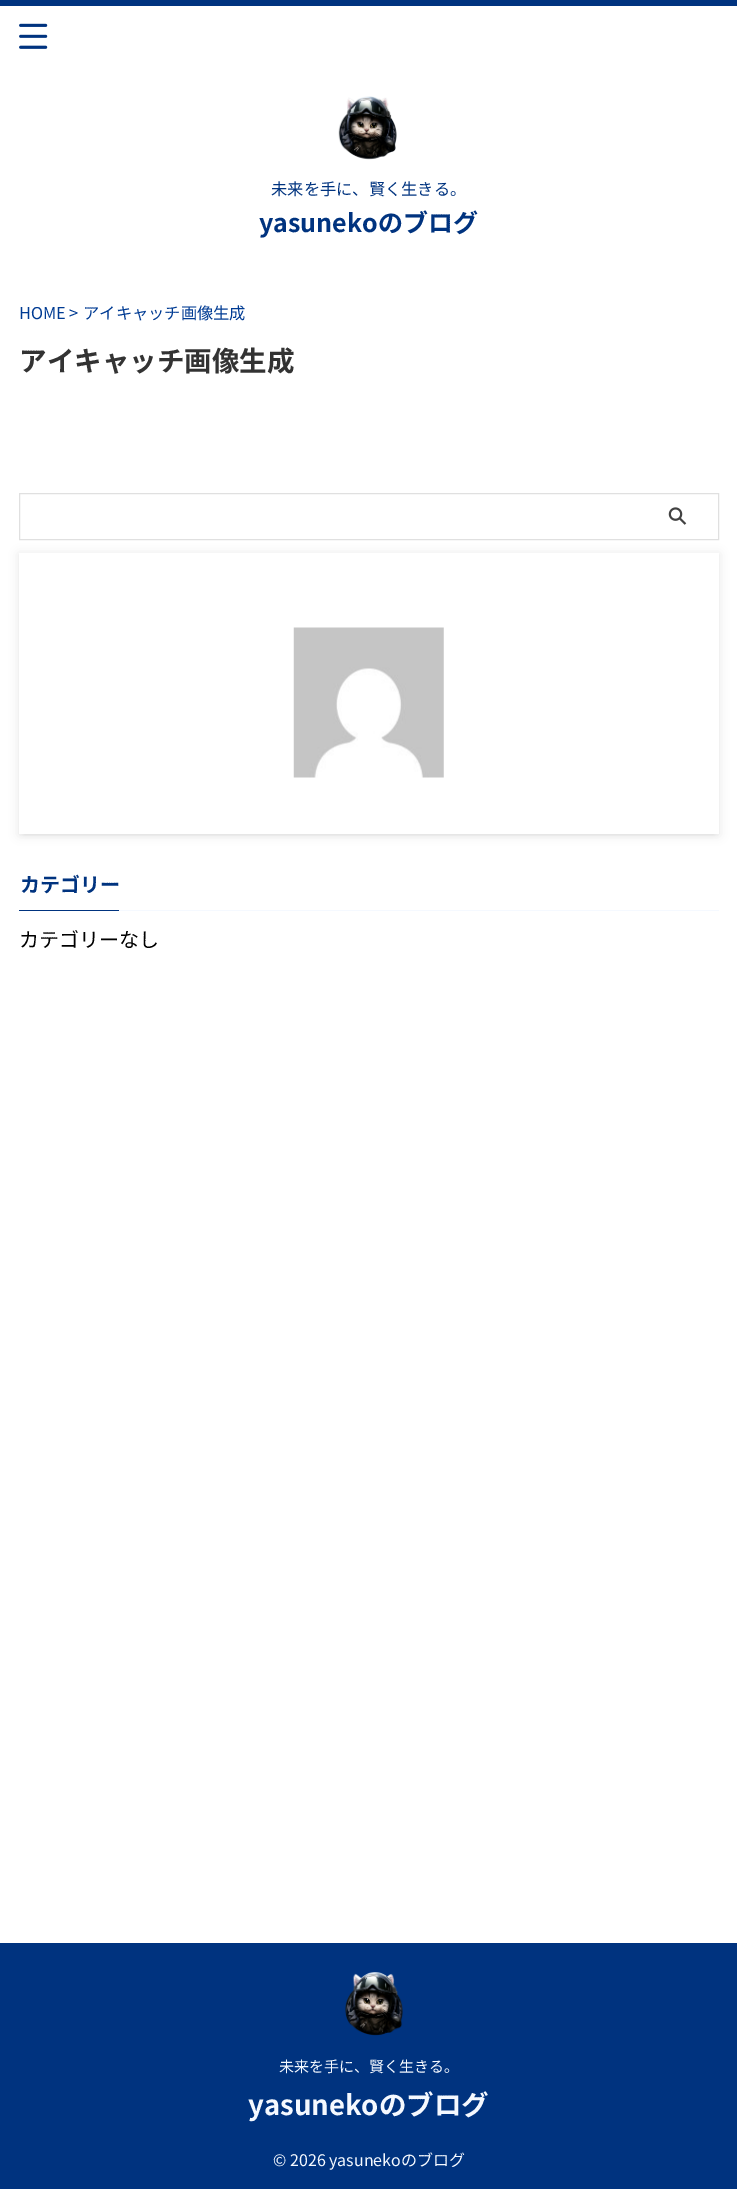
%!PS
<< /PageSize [737 2189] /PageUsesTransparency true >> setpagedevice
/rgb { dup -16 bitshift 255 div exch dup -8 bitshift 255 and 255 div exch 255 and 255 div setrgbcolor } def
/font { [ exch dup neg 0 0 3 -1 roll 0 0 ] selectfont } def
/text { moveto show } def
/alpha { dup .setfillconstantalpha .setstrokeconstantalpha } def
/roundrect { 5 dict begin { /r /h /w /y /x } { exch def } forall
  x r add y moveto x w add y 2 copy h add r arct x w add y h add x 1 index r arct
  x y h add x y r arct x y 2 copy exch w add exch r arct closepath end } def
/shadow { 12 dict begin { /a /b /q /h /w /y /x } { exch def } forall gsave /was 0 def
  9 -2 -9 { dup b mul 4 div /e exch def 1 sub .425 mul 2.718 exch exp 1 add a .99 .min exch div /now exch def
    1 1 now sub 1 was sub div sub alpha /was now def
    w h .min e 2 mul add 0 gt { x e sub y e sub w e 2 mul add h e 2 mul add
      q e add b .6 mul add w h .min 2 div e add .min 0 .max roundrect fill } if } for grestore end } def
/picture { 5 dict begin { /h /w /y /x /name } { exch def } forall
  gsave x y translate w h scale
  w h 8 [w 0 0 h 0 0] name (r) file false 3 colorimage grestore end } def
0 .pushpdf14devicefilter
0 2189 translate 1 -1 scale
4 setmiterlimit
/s1 { /NotoSansJP-Regular 16.25 font 16#00337F rgb } def
/s2 { /NotoSansJP-Bold 25 font 16#00337F rgb } def
/s3 { /NotoSansJP-Regular 16.25 font 16#003B93 rgb } def
/s4 { /NotoSansJP-Bold 27.5 font 16#333333 rgb } def
/s5 { /NotoSansJP-Bold 20 font 16#00337F rgb } def
/s6 { /NotoSansJP-Regular 20 font 16#000000 rgb } def
/s7 { /NotoSansJP-Regular 15 font 16#F5F9FF rgb } def
/s8 { /NotoSansJP-Bold 27.5 font 16#F5F9FF rgb } def
/s9 { /NotoSansJP-Regular 16 font 16#F5F9FF rgb } def
16#FFFFFF rgb
0 0 737 2189 rectfill
16#00337F rgb
0 0 737 6 rectfill
(pic1.raw) 19 23 29 26 picture
(pic2.raw) 338 96 59 64 picture
s1
(未来を手に、賢く生きる。) 271 195 text
s2
(yasunekoのブログ) 259 232 text
s3
(HOME >) 19 319 text
(アイキャッチ画像生成) 83 319 text
s4
(アイキャッチ画像生成) 19 371 text
16#000000 rgb
19 554 700 281 0 5 0.1 shadow
16#E0E0E0 rgb
19.5 493.5 699 46 rectstroke
(pic3.raw) 668 507 19 18 picture
16#000000 rgb
24 563 690 271 0 2.5 0.1 shadow
16#FFFFFF rgb
19 553 700 281 rectfill
(pic4.raw) 293 627 151 151 picture
16#F5F9FF rgb
119 910 600 1 rectfill
s5
(カテゴリー) 20 892 text
19 910 100 1 rectfill
s6
(カテゴリーなし) 19 947 text
16#00337F rgb
0 1943 737 246 rectfill
(pic5.raw) 345 1972 58 64 picture
s7
(未来を手に、賢く生きる。) 279 2072 text
s8
(yasunekoのブログ) 248 2115 text
s9
(© 2026 yasunekoのブログ) 273 2166 text
.poppdf14devicefilter showpage
